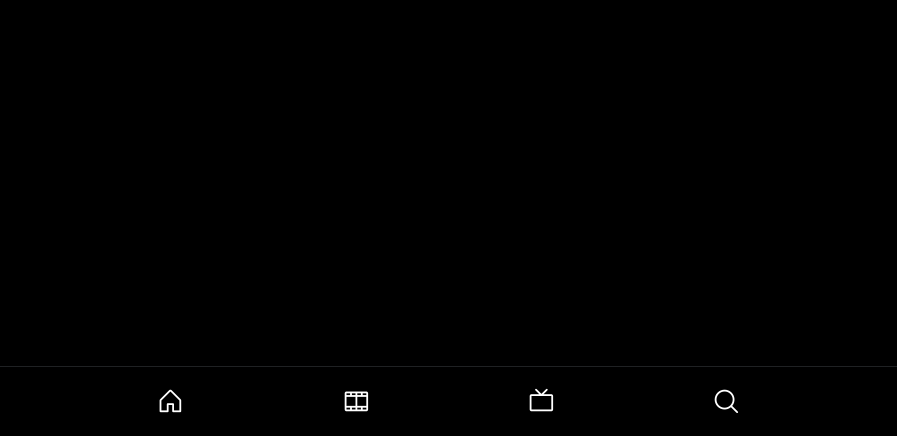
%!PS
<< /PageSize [897 436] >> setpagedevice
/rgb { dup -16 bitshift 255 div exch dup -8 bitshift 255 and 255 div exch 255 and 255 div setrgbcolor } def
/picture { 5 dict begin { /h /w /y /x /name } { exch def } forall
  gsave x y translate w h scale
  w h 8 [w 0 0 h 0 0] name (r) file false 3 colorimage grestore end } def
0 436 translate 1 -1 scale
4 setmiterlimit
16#000000 rgb
0 0 897 436 rectfill
16#1F2123 rgb
0 366 897 1 rectfill
(pic1.raw) 159 389 23 24 picture
(pic2.raw) 344 391 25 21 picture
(pic3.raw) 529 388 25 24 picture
(pic4.raw) 714 389 25 24 picture
showpage
